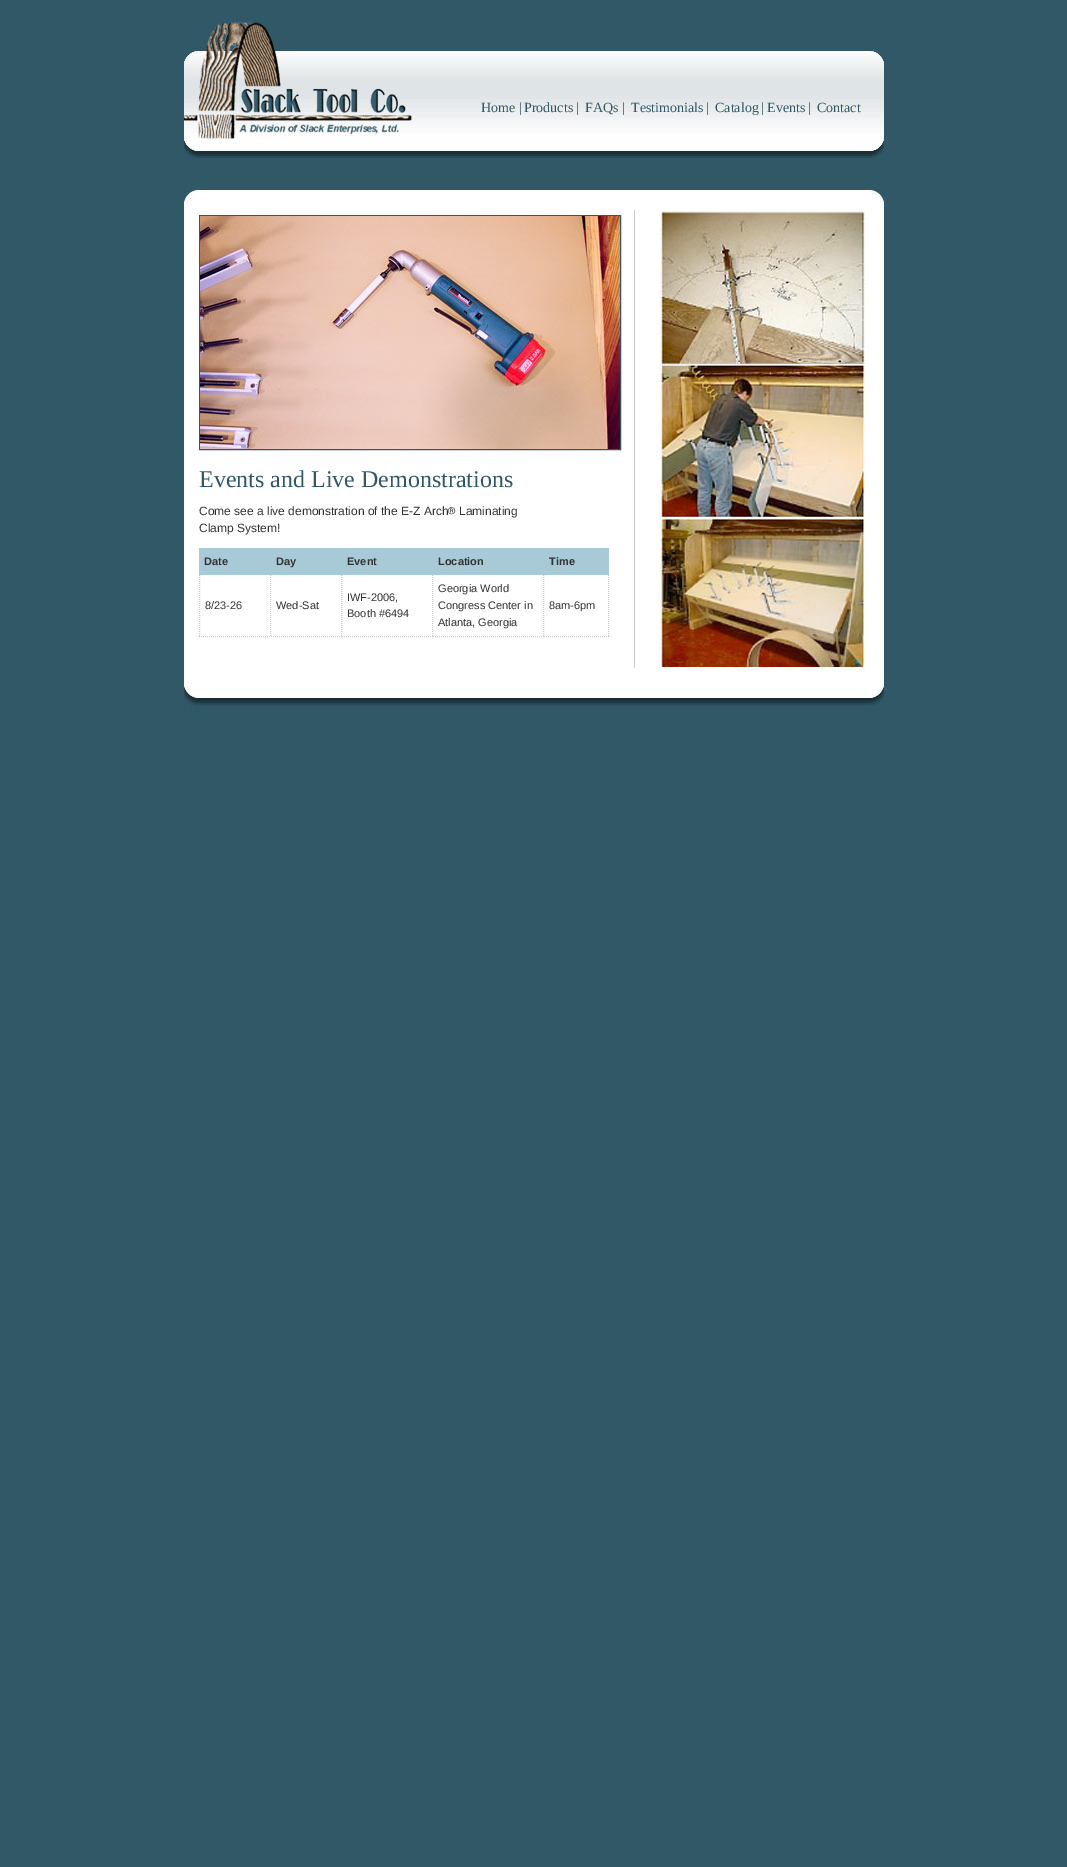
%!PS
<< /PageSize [1067 1867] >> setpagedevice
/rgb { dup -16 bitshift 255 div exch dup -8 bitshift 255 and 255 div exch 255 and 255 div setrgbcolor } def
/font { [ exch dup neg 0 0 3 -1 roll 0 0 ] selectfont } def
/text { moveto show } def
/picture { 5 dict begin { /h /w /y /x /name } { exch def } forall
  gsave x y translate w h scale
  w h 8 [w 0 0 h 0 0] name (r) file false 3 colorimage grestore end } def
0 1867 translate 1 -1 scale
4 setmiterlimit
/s1 { /LiberationSerif-Regular 14 font 16#315867 rgb } def
/s2 { /LiberationSerif-Regular 24 font 16#315867 rgb } def
/s3 { /LiberationSans-Regular 12 font 16#333333 rgb } def
/s4 { /DejaVuSansMono-Regular 12 font 16#333333 rgb } def
/s5 { /LiberationSans-Bold 11 font 16#333333 rgb } def
/s6 { /LiberationSans-Regular 11 font 16#333333 rgb } def
16#315867 rgb
0 0 1067 1867 rectfill
(pic1.raw) 184 22 700 137 picture
s1
(Home) 481 112 text
(|) 519 112 text
(Products) 524 112 text
(|) 576 112 text
(FAQs) 585 112 text
(|) 622 112 text
(Testimonials) 631 112 text
(|) 706 112 text
(Catalog) 715 112 text
(|) 761 112 text
(Events) 767 112 text
(|) 808 112 text
(Contact) 817 112 text
16#FFFFFF rgb
184 206 700 480 rectfill
(pic2.raw) 184 190 700 16 picture
16#CCCCCC rgb
634 210 1 458 rectfill
16#315867 rgb
199.5 215.5 421 234 rectstroke
(pic3.raw) 200 216 420 233 picture
s2
(Events and Live Demonstrations) 199 487 text
s3
(Come see a live demonstration of the E-Z Arch) 199 515 text
s4
(®) 448 515 text
s3
(Laminating) 459 515 text
(Clamp System!) 199 532 text
16#A8C9D6 rgb
199 548 410 27 rectfill
s5
(Date) 204 565 text
(Day) 276 565 text
(Event) 347 565 text
(Location) 438 565 text
(Time) 549 565 text
16#CCCCCC rgb
[1 1] 0 setdash
270.5 575 moveto 270.5 637 lineto stroke
199 636.5 moveto 271 636.5 lineto stroke
199.5 575 moveto 199.5 637 lineto stroke
s6
(8/23-26) 205 609 text
16#CCCCCC rgb
341.5 575 moveto 341.5 637 lineto stroke
271 636.5 moveto 342 636.5 lineto stroke
s6
(Wed-Sat) 276 609 text
16#CCCCCC rgb
432.5 575 moveto 432.5 637 lineto stroke
342 636.5 moveto 433 636.5 lineto stroke
s6
(IWF-2006,) 347 601 text
(Booth #6494) 347 617 text
16#CCCCCC rgb
543.5 575 moveto 543.5 637 lineto stroke
433 636.5 moveto 544 636.5 lineto stroke
s6
(Georgia World) 438 592 text
(Congress Center in) 438 609 text
(Atlanta, Georgia) 438 626 text
16#CCCCCC rgb
608.5 575 moveto 608.5 637 lineto stroke
544 636.5 moveto 609 636.5 lineto stroke
s6
(8am-6pm) 549 609 text
(pic4.raw) 659 210 206 460 picture
(pic5.raw) 184 686 700 22 picture
showpage
